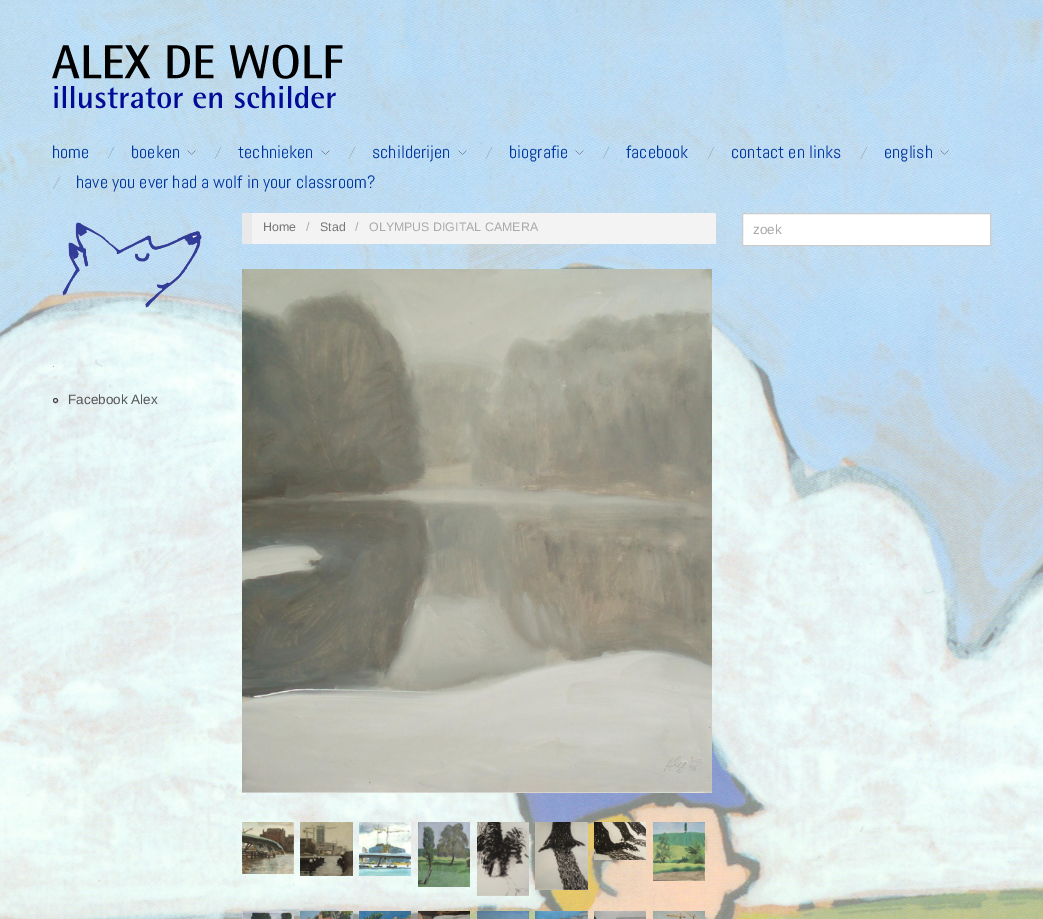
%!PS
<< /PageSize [1043 919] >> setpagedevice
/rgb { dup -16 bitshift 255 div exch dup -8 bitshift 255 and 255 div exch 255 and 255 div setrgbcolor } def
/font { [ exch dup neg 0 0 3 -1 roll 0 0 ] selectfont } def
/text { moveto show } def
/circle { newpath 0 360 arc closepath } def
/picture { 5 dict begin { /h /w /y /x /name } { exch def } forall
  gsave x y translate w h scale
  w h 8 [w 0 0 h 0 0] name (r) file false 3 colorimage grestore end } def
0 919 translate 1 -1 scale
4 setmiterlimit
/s1 { /Abel-Regular 18 font 16#00379E rgb } def
/s2 { /LiberationSans-Regular 12.4 font 16#777777 rgb } def
/s3 { /LiberationSans-Regular 12.4 font 16#AAAAAA rgb } def
/s4 { /LiberationSans-Regular 13.5 font 16#AAAAAA rgb } def
/s5 { /LiberationSans-Regular 13.5 font 16#555555 rgb } def
16#FFFFFF rgb
0 0 1043 919 rectfill
(pic1.raw) 0 0 1043 919 picture
(pic2.raw) 52 44 291 65 picture
s1
(home) 52 158 text
(pic3.raw) 107 146 8 13 picture
(boeken) 131 158 text
(pic4.raw) 187 150 9 5 picture
(pic5.raw) 214 146 8 13 picture
(technieken) 238 158 text
(pic6.raw) 321 150 9 5 picture
(pic7.raw) 348 146 8 13 picture
(schilderijen) 372 158 text
(pic8.raw) 458 150 9 5 picture
(pic9.raw) 485 146 8 13 picture
(biografie) 509 158 text
(pic10.raw) 575 150 9 5 picture
(pic11.raw) 602 146 8 13 picture
(facebook) 626 158 text
(pic12.raw) 707 146 8 13 picture
(contact en links) 731 158 text
(pic13.raw) 860 146 8 13 picture
(english) 884 158 text
(pic14.raw) 940 150 9 5 picture
(pic15.raw) 52 176 9 13 picture
(have you ever had a wolf in your classroom?) 76 188 text
16#F3F3F3 rgb
252 213 464 31 rectfill
16#E9E9E9 rgb
242 213 10 31 rectfill
s2
(Home) 263 231 text
s3
(/) 306 231 text
s2
(Stad) 320 231 text
s3
(/) 355 231 text
(OLYMPUS DIGITAL CAMERA) 369 231 text
(pic16.raw) 242 269 470 524 picture
(pic17.raw) 242 822 52 52 picture
(pic18.raw) 300 822 53 54 picture
(pic19.raw) 359 822 52 54 picture
(pic20.raw) 418 822 52 65 picture
(pic21.raw) 477 822 52 74 picture
(pic22.raw) 535 822 53 68 picture
(pic23.raw) 594 822 52 38 picture
(pic24.raw) 653 822 52 59 picture
(pic25.raw) 242 911 52 8 picture
(pic26.raw) 300 911 53 8 picture
(pic27.raw) 359 911 52 8 picture
(pic28.raw) 418 911 52 8 picture
(pic29.raw) 477 911 52 8 picture
(pic30.raw) 535 911 53 8 picture
(pic31.raw) 594 911 52 8 picture
(pic32.raw) 653 911 52 8 picture
16#FFFFFF rgb
742.5 213.5 moveto 990.5 213.5 lineto 990.5 245.5 lineto 742.5 245.5 lineto closepath gsave fill grestore
16#CCCCCC rgb
stroke
s4
(zoek) 753 234 text
(pic33.raw) 62 222 140 86 picture
/Abel-Regular 13.5 font
52 367 moveto 1 0 (.) ashow
16#444444 rgb
55.5 400.5 2 circle stroke
s5
(Facebook Alex) 68 404 text
showpage
